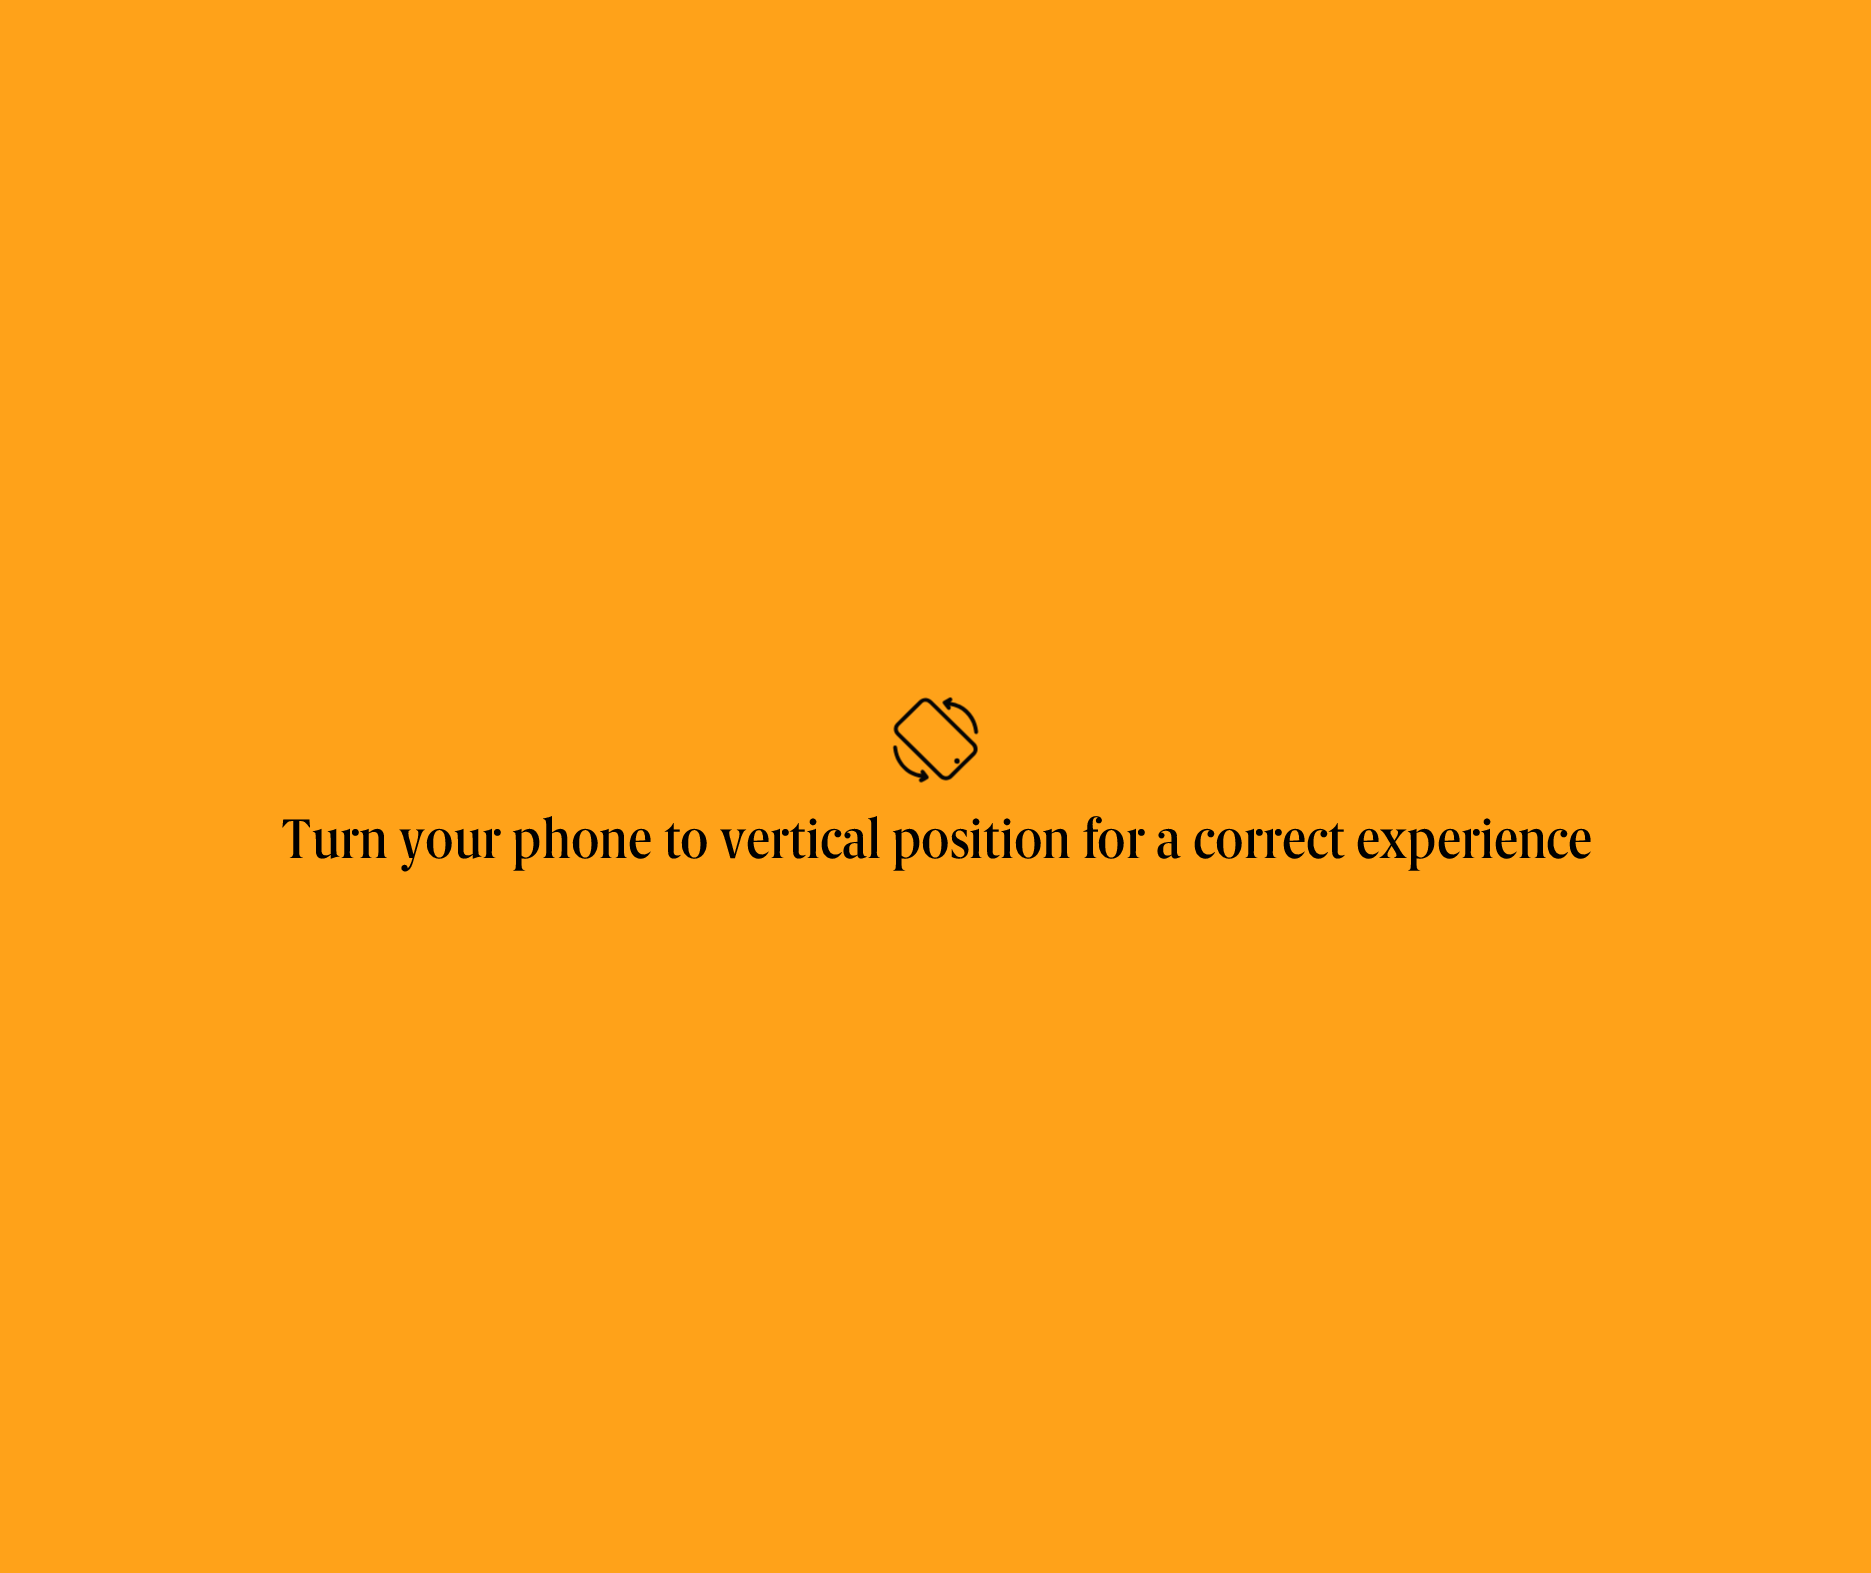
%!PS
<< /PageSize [1871 1573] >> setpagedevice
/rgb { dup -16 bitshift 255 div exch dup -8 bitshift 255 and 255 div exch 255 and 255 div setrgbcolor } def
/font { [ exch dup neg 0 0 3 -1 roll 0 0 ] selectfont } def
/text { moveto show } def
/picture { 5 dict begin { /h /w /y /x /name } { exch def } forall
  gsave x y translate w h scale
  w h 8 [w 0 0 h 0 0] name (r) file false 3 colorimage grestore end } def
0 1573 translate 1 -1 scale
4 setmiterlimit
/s1 { /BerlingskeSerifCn-Medium 55.9 font 16#000000 rgb } def
16#FFA219 rgb
0 0 1871 1573 rectfill
(pic1.raw) 892 697 87 86 picture
s1
(Turn your phone to vertical position for a correct experience) 281 858 text
showpage
